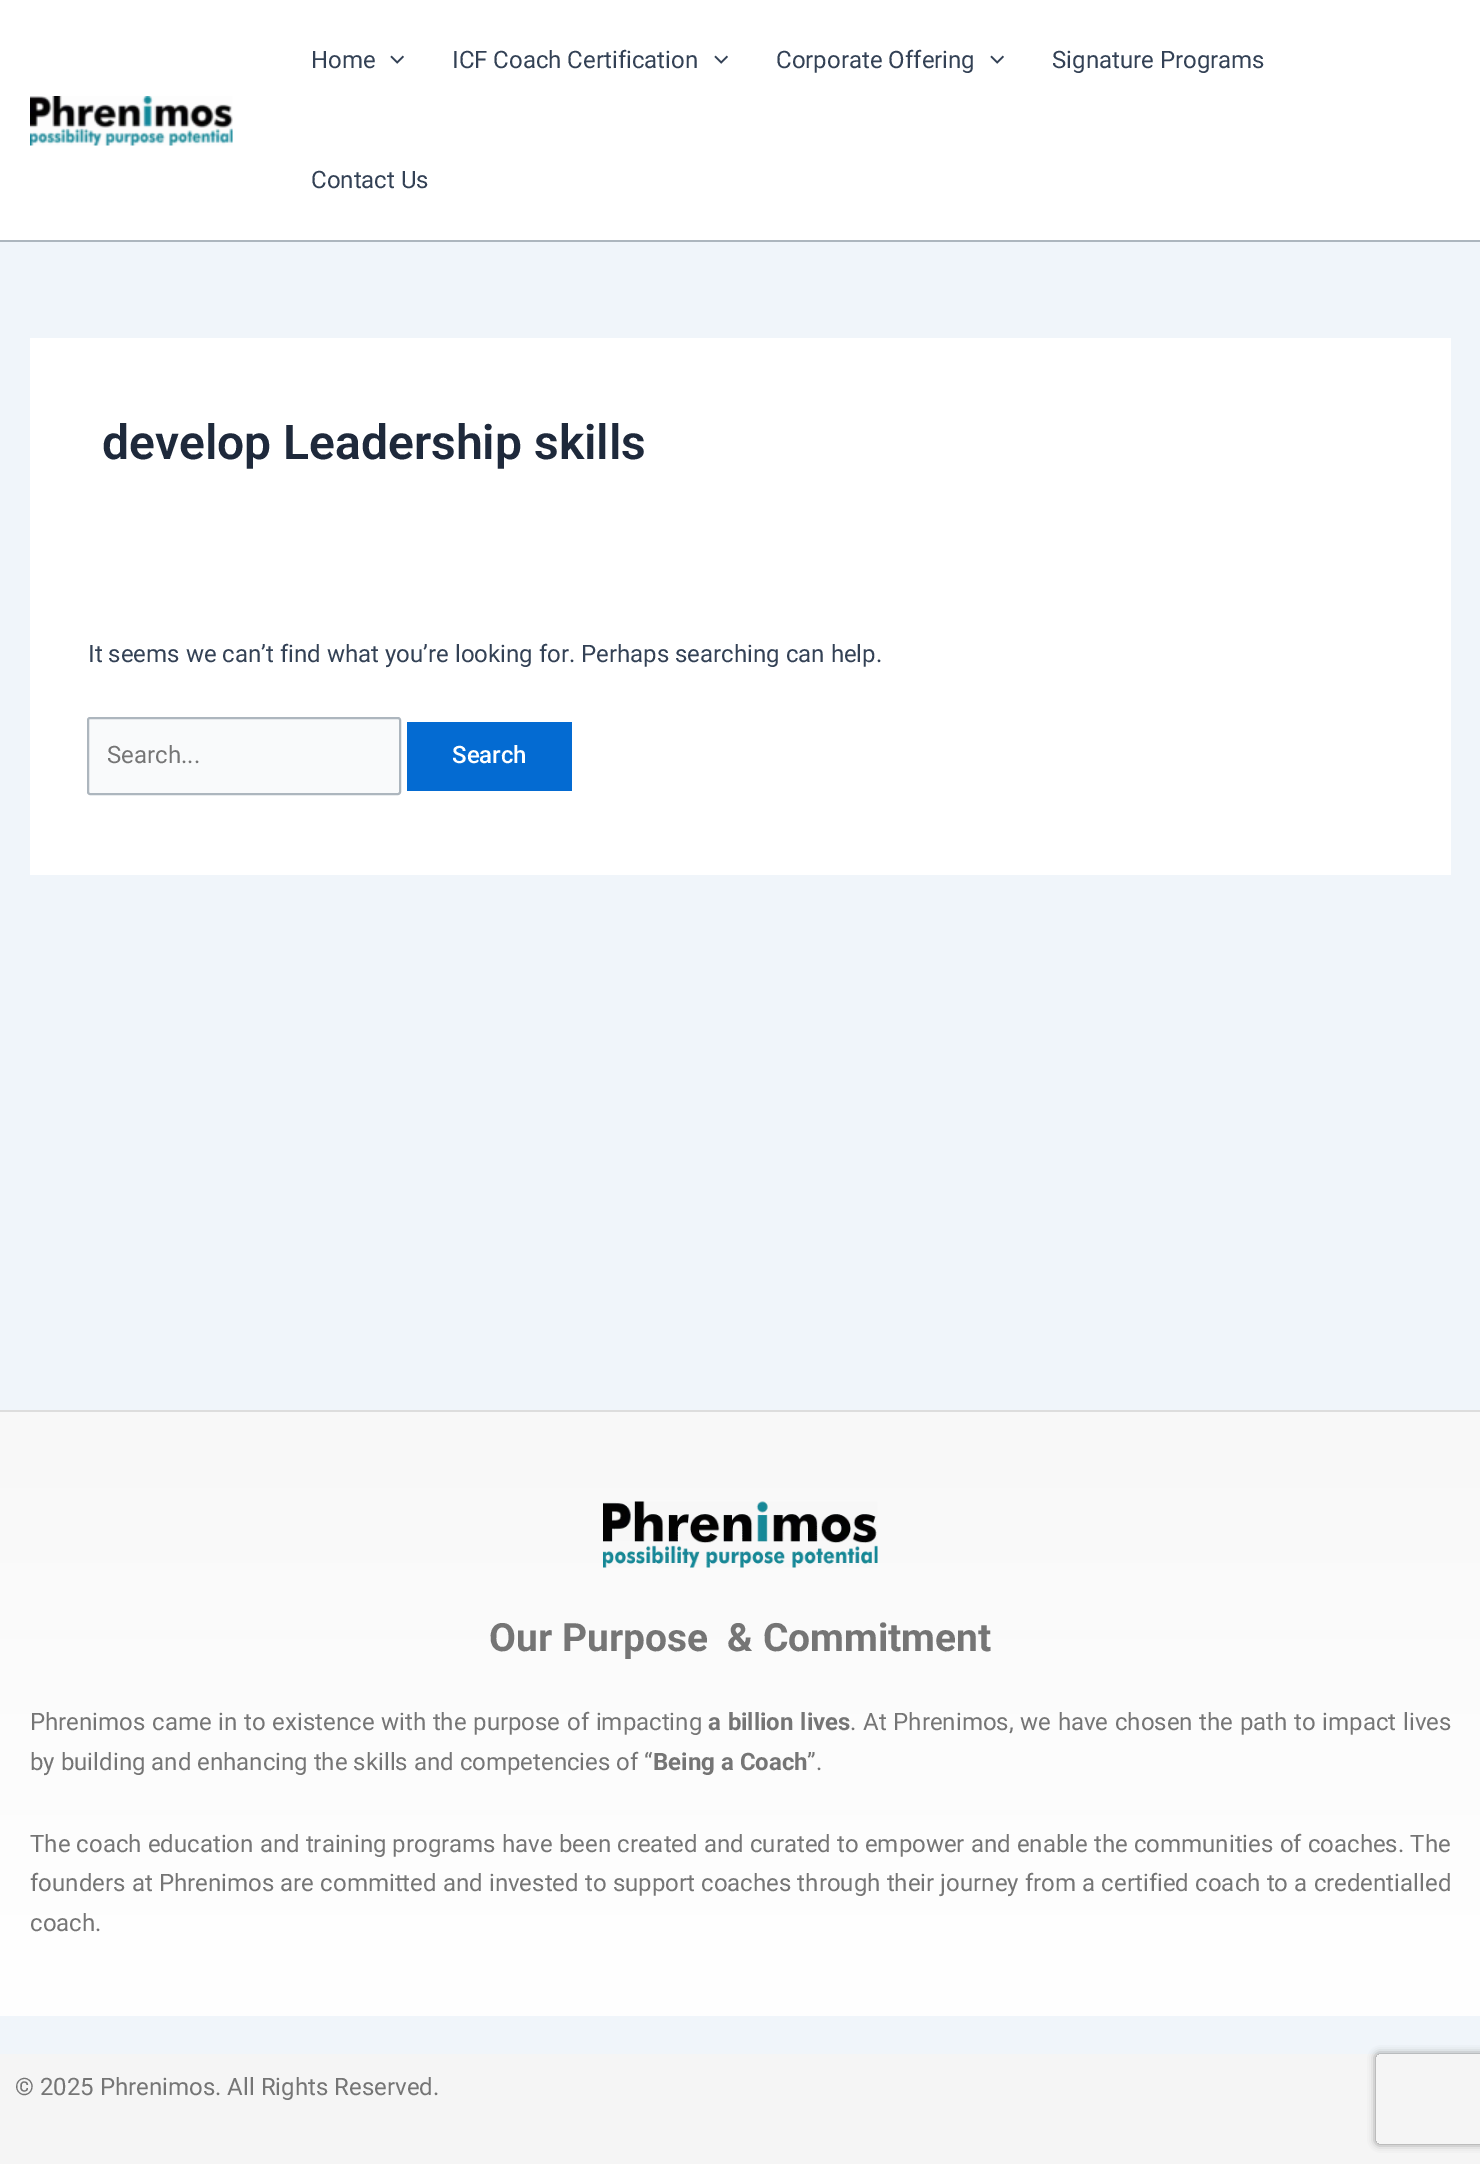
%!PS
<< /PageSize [1480 2164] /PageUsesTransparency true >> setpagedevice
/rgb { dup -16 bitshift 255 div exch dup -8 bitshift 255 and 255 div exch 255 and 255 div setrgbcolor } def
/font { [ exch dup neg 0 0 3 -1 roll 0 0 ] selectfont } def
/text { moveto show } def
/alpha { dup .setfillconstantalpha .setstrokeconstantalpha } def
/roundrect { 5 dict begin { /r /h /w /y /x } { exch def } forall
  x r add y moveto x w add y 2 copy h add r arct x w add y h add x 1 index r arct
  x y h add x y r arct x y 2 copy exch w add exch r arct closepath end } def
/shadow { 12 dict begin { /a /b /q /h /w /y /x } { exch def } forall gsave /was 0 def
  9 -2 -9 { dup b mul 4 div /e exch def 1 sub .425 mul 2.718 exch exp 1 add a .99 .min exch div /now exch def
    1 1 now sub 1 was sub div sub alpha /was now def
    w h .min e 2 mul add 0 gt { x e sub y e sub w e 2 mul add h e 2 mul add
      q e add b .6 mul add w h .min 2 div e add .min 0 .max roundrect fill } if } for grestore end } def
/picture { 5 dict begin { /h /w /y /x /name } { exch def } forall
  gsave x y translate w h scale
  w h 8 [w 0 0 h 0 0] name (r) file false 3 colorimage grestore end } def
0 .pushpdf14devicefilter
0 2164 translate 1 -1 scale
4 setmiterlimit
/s1 { /Roboto-Regular 24 font 16#334155 rgb } def
/s2 { /Roboto-SemiBold 48 font 16#1E293B rgb } def
/s3 { /Roboto-Regular 24 font 16#757575 rgb } def
/s4 { /Roboto-Medium 24 font 16#FFFFFF rgb } def
/s5 { /Roboto-Bold 39 font 16#757575 rgb } def
/s6 { /Roboto-Bold 24 font 16#757575 rgb } def
16#F0F5FA rgb
0 0 1480 2164 rectfill
16#FFFFFF rgb
0 0 1480 240 rectfill
16#ADB6BE rgb
0 240 1480 2 rectfill
(pic1.raw) 30 96 203 50 picture
s1
(Home) 311 68 text
(pic2.raw) 390 55 14 9 picture
(ICF Coach Certification) 452 68 text
(pic2.raw) 714 55 14 9 picture
(Corporate Offering) 776 68 text
(pic2.raw) 990 55 14 9 picture
(Signature Programs) 1052 68 text
(Contact Us) 311 188 text
16#FFFFFF rgb
30 338 1421 537 rectfill
s2
(develop Leadership skills) 102 459 text
s1
(It seems we can’t find what you’re looking for. Perhaps searching can help.) 88 662 text
16#F9FAFB rgb
88 718 312 76 2 roundrect gsave fill grestore
16#ADB6BE rgb
2 setlinewidth
stroke
s3
(Search...) 107 763 text
16#046BD2 rgb
407 722 165 69 rectfill
s4
(Search) 452 763 text
gsave 0 1412 moveto 1480 1412 lineto 1480 2016 lineto 0 2016 lineto closepath clip newpath
<< /ShadingType 2 /ColorSpace /DeviceRGB /Coords [740 2016 740 1411] /Extend [true true] /Function << /FunctionType 2 /Domain [0 1] /C0 [1 1 1] /C1 [0.973 0.973 0.973] /N 1 >> >> shfill grestore
16#DDDDDD rgb
0 1410 1480 2 rectfill
(pic3.raw) 603 1501 275 67 picture
s5
(Our Purpose  & Commitment) 489 1651 text
/Roboto-Regular 24 font
30 1730 moveto 0.75 0 32 (Phrenimos came in to existence with the purpose of impacting) widthshow
/Roboto-Bold 24 font
708 1730 moveto 0.75 0 32 (a billion lives) widthshow
s3
(.) 850 1730 text
863 1730 moveto 0.75 0 32 (At Phrenimos, we have chosen the path to impact lives) widthshow
(by building and enhancing the skills and competencies of “) 30 1770 text
s6
(Being a Coach) 653 1770 text
s3
(”.) 807 1770 text
30 1852 moveto 0.2 0 32 (The coach education and training programs have been created and curated to empower and enable the communities of coaches. The) widthshow
30 1891 moveto 0.25 0 32 (founders at Phrenimos are committed and invested to support coaches through their journey from a certified coach to a credentialled) widthshow
(coach.) 30 1931 text
16#F5F5F5 rgb
0 2054 1480 110 rectfill
s3
(© 2025 Phrenimos. All Rights Reserved.) 15 2095 text
gsave
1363 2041 moveto 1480 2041 lineto 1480 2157 lineto 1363 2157 lineto closepath 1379 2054 moveto 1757 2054 lineto 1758.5 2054 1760 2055.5 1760 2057 curveto 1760 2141 lineto 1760 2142.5 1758.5 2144 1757 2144 curveto 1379 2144 lineto 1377.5 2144 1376 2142.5 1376 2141 curveto 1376 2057 lineto 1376 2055.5 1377.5 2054 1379 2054 curveto closepath eoclip newpath
16#808080 rgb
1376 2054 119 90 3 4 1 shadow
grestore
.poppdf14devicefilter showpage
